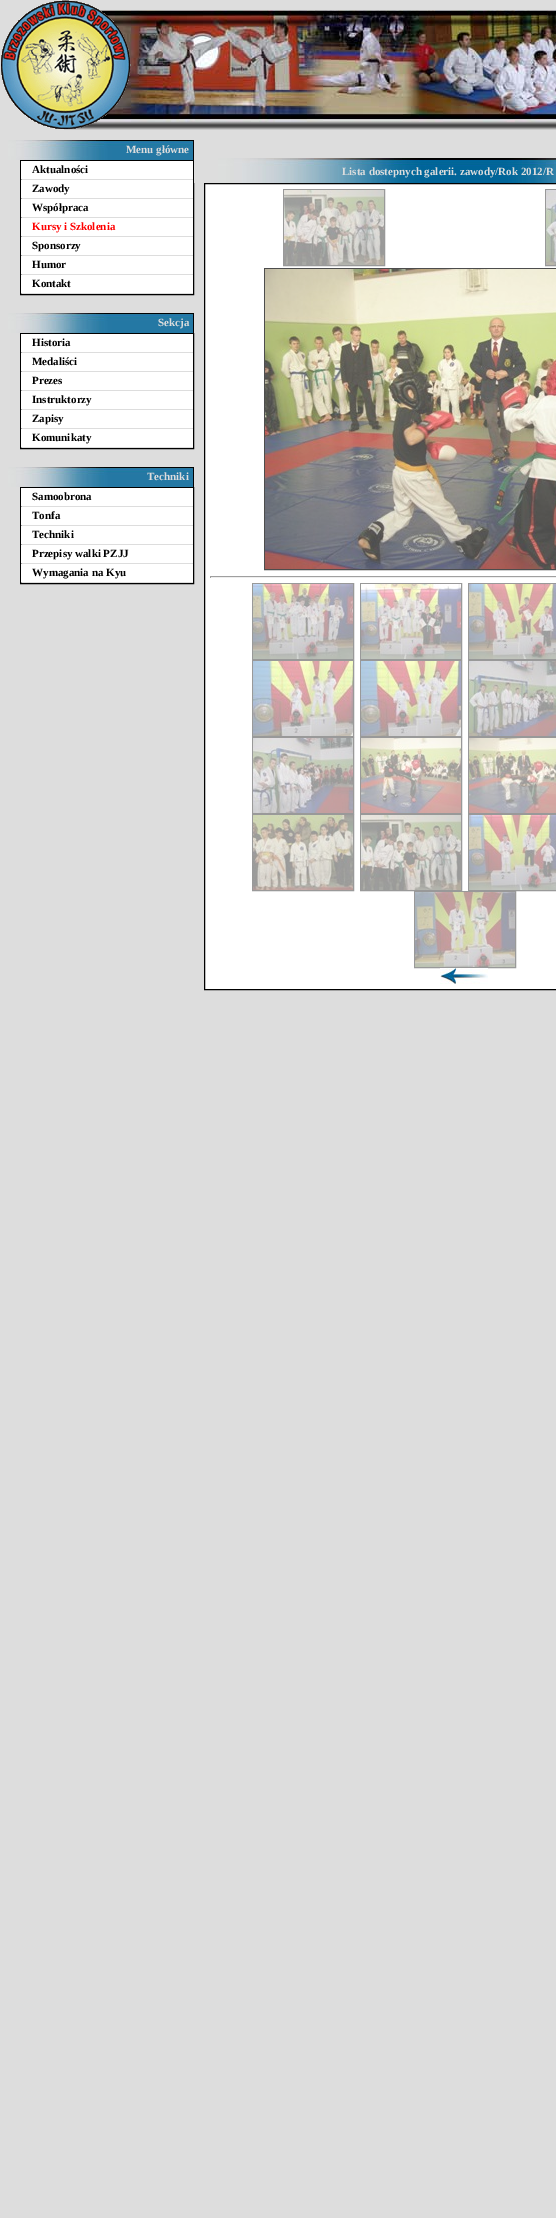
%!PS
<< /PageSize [556 2218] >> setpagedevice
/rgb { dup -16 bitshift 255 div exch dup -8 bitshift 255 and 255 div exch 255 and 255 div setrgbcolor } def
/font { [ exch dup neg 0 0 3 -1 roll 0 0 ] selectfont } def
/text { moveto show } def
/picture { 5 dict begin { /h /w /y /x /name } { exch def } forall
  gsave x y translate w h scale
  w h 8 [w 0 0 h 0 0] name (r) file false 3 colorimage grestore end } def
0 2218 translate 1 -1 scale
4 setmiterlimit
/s1 { /LiberationSerif-Bold 11 font 16#DDDDDD rgb } def
/s2 { /LiberationSerif-Bold 11 font 16#000000 rgb } def
/s3 { /LiberationSerif-Bold 11 font 16#FF0000 rgb } def
16#DDDDDD rgb
0 0 556 2218 rectfill
(pic2.raw) 64 10 492 120 picture
(pic1.raw) 1 0 130 129 picture
(pic3.raw) 0 140 194 20 picture
s1
(Menu główne) 126 153 text
16#000000 rgb
20.5 160.5 173 134 rectstroke
16#FFFFFF rgb
21 161 172 18 rectfill
s2
(Aktualności) 32 173 text
16#FFFFFF rgb
21 180 172 18 rectfill
s2
(Zawody) 32 192 text
16#FFFFFF rgb
21 199 172 18 rectfill
s2
(Współpraca) 32 211 text
16#FFFFFF rgb
21 218 172 18 rectfill
s3
(Kursy i Szkolenia) 32 230 text
16#FFFFFF rgb
21 237 172 18 rectfill
s2
(Sponsorzy) 32 249 text
16#FFFFFF rgb
21 256 172 18 rectfill
s2
(Humor) 32 268 text
16#FFFFFF rgb
21 275 172 18 rectfill
s2
(Kontakt) 32 287 text
(pic3.raw) 0 313 194 20 picture
s1
(Sekcja) 158 326 text
16#000000 rgb
20.5 333.5 173 115 rectstroke
16#FFFFFF rgb
21 334 172 18 rectfill
s2
(Historia) 32 346 text
16#FFFFFF rgb
21 353 172 18 rectfill
s2
(Medaliści) 32 365 text
16#FFFFFF rgb
21 372 172 18 rectfill
s2
(Prezes) 32 384 text
16#FFFFFF rgb
21 391 172 18 rectfill
s2
(Instruktorzy) 32 403 text
16#FFFFFF rgb
21 410 172 18 rectfill
s2
(Zapisy) 32 422 text
16#FFFFFF rgb
21 429 172 18 rectfill
s2
(Komunikaty) 32 441 text
(pic3.raw) 0 467 194 20 picture
s1
(Techniki) 147 480 text
16#000000 rgb
20.5 487.5 173 96 rectstroke
16#FFFFFF rgb
21 488 172 18 rectfill
s2
(Samoobrona) 32 500 text
16#FFFFFF rgb
21 507 172 18 rectfill
s2
(Tonfa) 32 519 text
16#FFFFFF rgb
21 526 172 18 rectfill
s2
(Techniki) 32 538 text
16#FFFFFF rgb
21 545 172 18 rectfill
s2
(Przepisy walki PZJJ) 32 557 text
16#FFFFFF rgb
21 564 172 18 rectfill
s2
(Wymagania na Kyu) 32 576 text
(pic4.raw) 194 158 362 25 picture
s1
(Lista dostepnych galerii. zawody/Rok 2012/R) 342 175 text
16#FFFFFF rgb
204.5 183.5 moveto 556.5 183.5 lineto 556.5 989.5 lineto 204.5 989.5 lineto closepath gsave fill grestore
16#000000 rgb
stroke
16#999999 rgb
283.5 189.5 101 76 rectstroke
545.5 189.5 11 76 rectstroke
(pic5.raw) 284 190 100 75 picture
(pic6.raw) 546 190 10 75 picture
16#4D4D4D rgb
264.5 268.5 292 301 rectstroke
(pic7.raw) 265 269 291 300 picture
16#9F9F9F rgb
210 576 346 1 rectfill
16#EEEEEE rgb
210 577 346 1 rectfill
16#9F9F9F rgb
210 576 1 2 rectfill
16#999999 rgb
252.5 583.5 101 76 rectstroke
360.5 583.5 101 76 rectstroke
468.5 583.5 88 76 rectstroke
(pic8.raw) 253 584 100 75 picture
(pic9.raw) 361 584 100 75 picture
(pic10.raw) 469 584 87 75 picture
252.5 660.5 101 76 rectstroke
360.5 660.5 101 76 rectstroke
468.5 660.5 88 76 rectstroke
(pic11.raw) 253 661 100 75 picture
(pic12.raw) 361 661 100 75 picture
(pic13.raw) 469 661 87 75 picture
252.5 737.5 101 76 rectstroke
360.5 737.5 101 76 rectstroke
468.5 737.5 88 76 rectstroke
(pic14.raw) 253 738 100 75 picture
(pic15.raw) 361 738 100 75 picture
(pic16.raw) 469 738 87 75 picture
252.5 814.5 101 76 rectstroke
360.5 814.5 101 76 rectstroke
468.5 814.5 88 76 rectstroke
(pic17.raw) 253 815 100 75 picture
(pic5.raw) 361 815 100 75 picture
(pic18.raw) 469 815 87 75 picture
414.5 891.5 101 76 rectstroke
(pic19.raw) 415 892 100 75 picture
(pic20.raw) 440 968 48 16 picture
showpage
